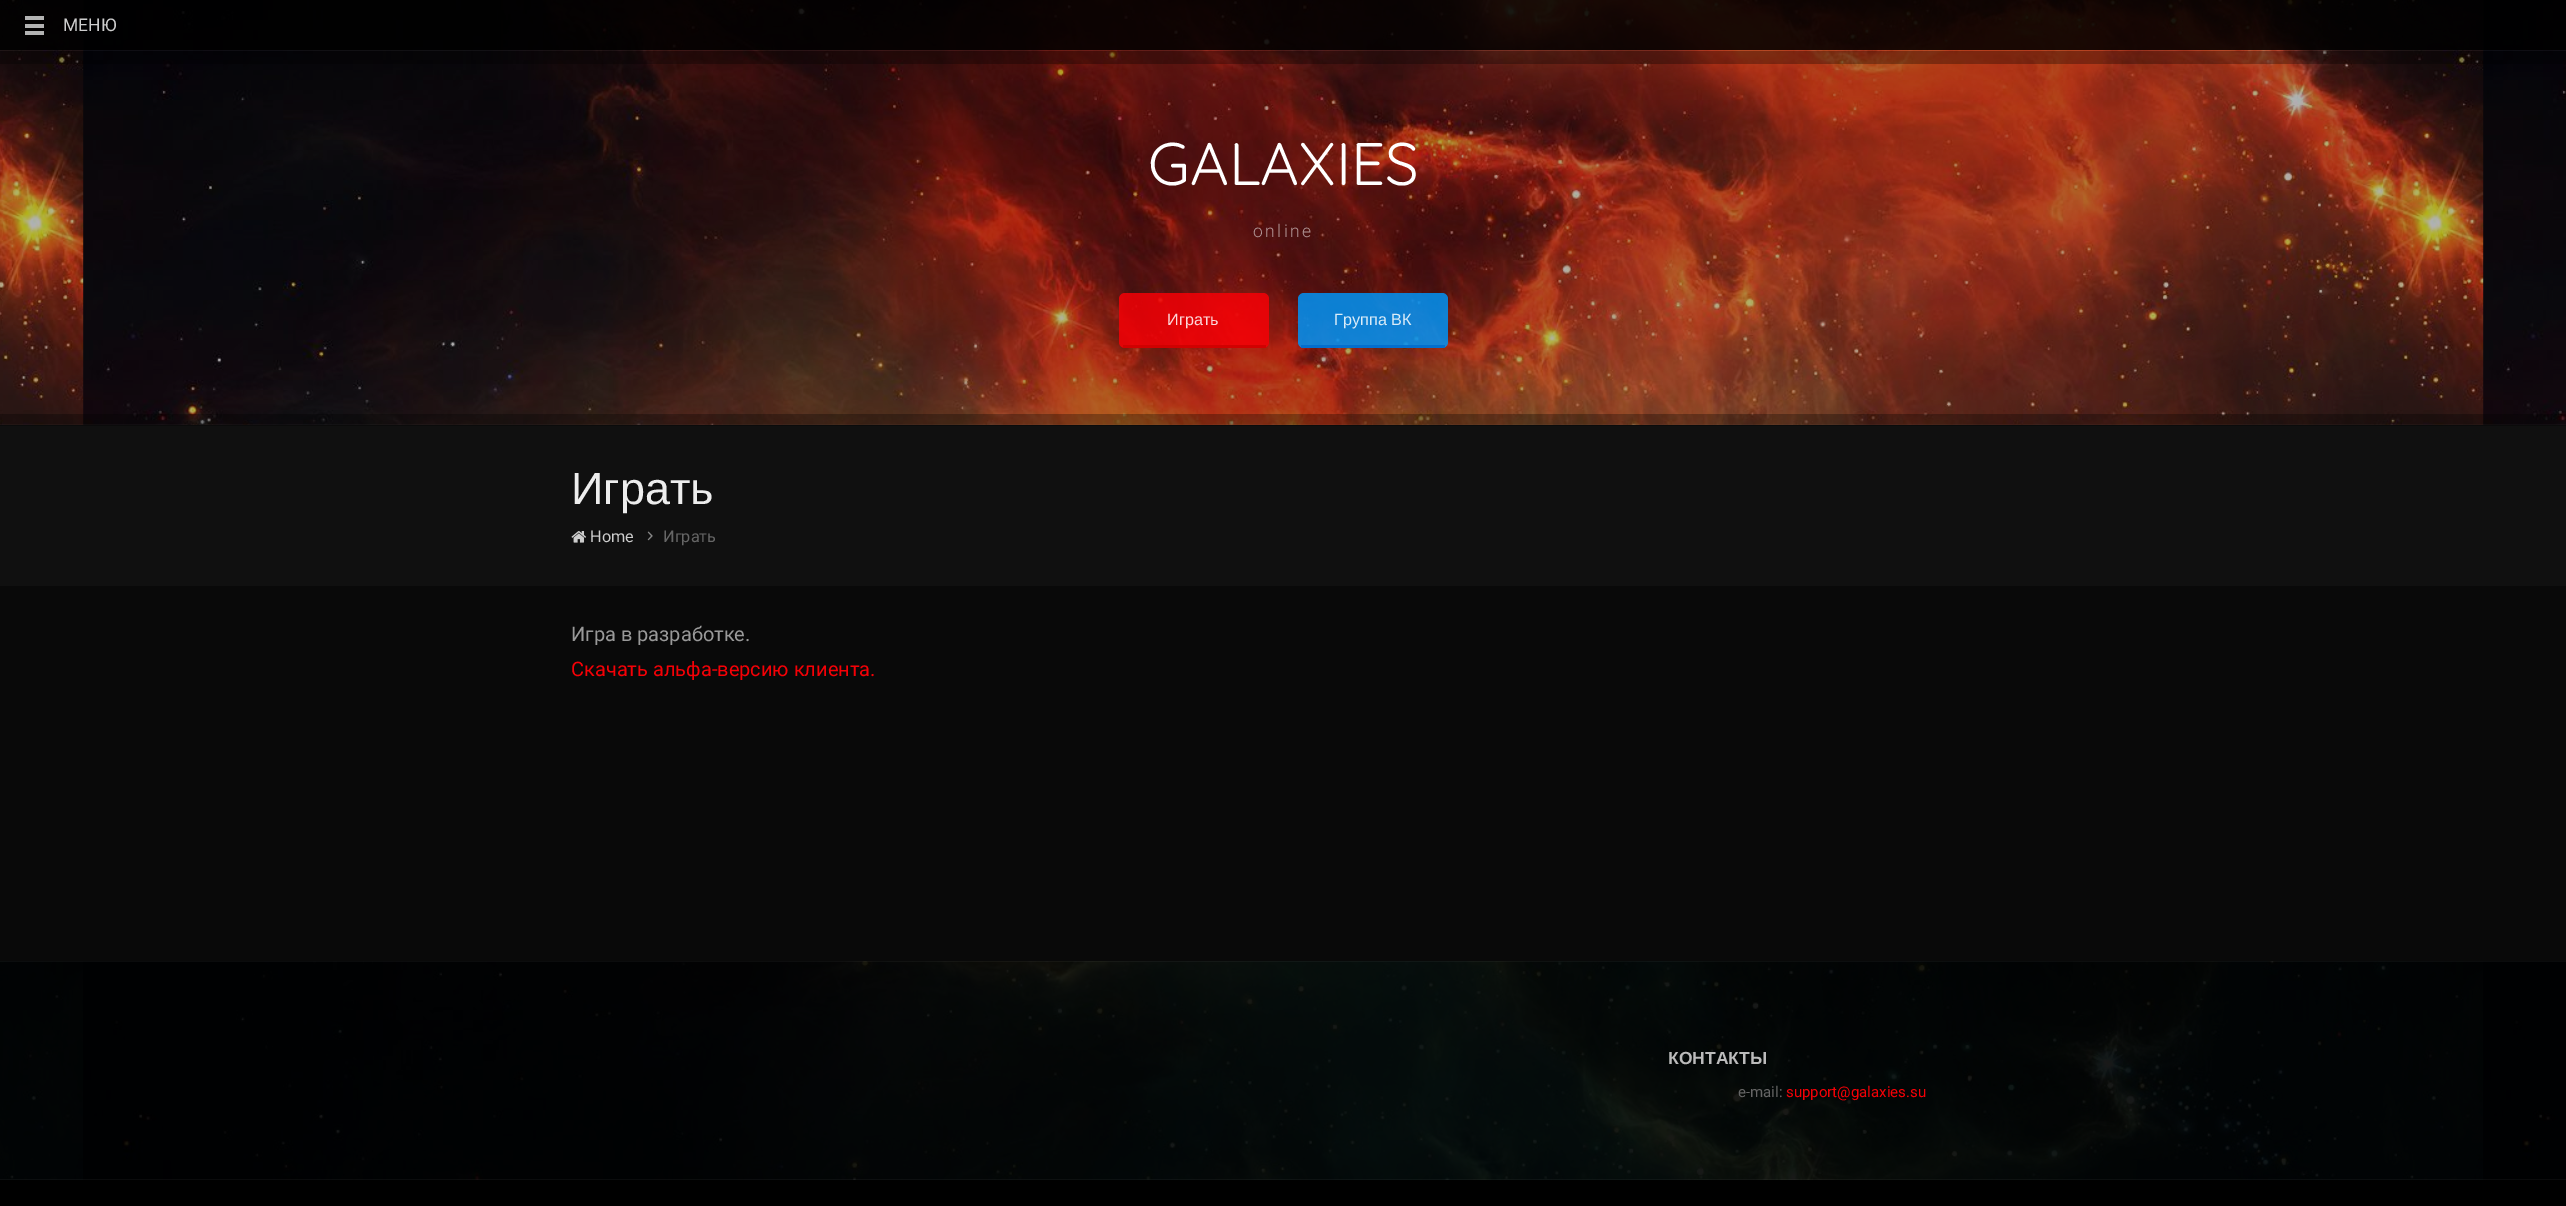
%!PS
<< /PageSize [2566 1206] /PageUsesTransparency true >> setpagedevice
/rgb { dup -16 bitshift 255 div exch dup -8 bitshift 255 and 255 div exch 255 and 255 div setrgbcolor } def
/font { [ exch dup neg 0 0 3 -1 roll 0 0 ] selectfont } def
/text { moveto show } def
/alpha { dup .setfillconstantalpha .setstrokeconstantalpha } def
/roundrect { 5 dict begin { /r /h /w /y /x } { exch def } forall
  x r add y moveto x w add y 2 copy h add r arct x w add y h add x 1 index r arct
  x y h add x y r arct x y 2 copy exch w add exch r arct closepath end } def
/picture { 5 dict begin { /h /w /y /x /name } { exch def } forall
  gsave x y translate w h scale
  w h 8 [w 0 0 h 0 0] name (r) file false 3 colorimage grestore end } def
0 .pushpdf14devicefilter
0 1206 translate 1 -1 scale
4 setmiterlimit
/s1 { /Roboto-Regular 17.5 font 16#CDCDCD rgb } def
/s2 { /Quicksand-Regular 60 font 16#FFFFFF rgb } def
/s3 { /LiberationSans-Regular 16.25 font 16#FBD9DA rgb } def
/s4 { /LiberationSans-Regular 16.25 font 16#DBECF8 rgb } def
/s5 { /LiberationSans-Regular 45 font 16#EDEDED rgb } def
/s6 { /Roboto-Regular 16.25 font 16#CDCDCD rgb } def
/s7 { /Roboto-Regular 16.25 font 16#666666 rgb } def
/s8 { /Roboto-Regular 20 font 16#999999 rgb } def
/s9 { /Roboto-Regular 20 font 16#F50006 rgb } def
/s10 { /LiberationSans-Bold 17.5 font 16#BBBBBB rgb } def
/s11 { /Roboto-Regular 15 font 16#666666 rgb } def
/s12 { /Roboto-Regular 15 font 16#F50006 rgb } def
16#FFFFFF rgb
0 0 2566 1206 rectfill
(pic1.raw) 0 0 2566 1180 picture
0.9 alpha
16#000000 rgb
0 0 2566 50 rectfill
1 alpha
16#B3B3B3 rgb
25 16 19 4 rectfill
25 24 19 4 rectfill
25 31 19 4 rectfill
s1
(МЕНЮ) 63 31 text
0.3 alpha
16#000000 rgb
0 50 2566 375 rectfill
0.04 alpha
16#FFFFFF rgb
0 50 2566 1 rectfill
0 424 2566 1 rectfill
0.3 alpha
16#000000 rgb
0 51 2566 13 rectfill
1 alpha
16#101010 rgb
0 425 2566 161 rectfill
0.3 alpha
16#000000 rgb
0 414 2566 12 rectfill
1 alpha
s2
(GALAXIES) 1148 185 text
/Roboto-Light 17.5 font
16#B09494 rgb
1253 237 moveto 2.5 0 (online) ashow
0.85 alpha
16#F50006 rgb
1119 293 150 55 6 roundrect fill
16#CD0000 rgb
1123 345 143 3 rectfill
1 alpha
s3
(Играть) 1167 325 text
0.85 alpha
16#0093F5 rgb
1298 293 150 55 6 roundrect fill
16#006BCD rgb
1301 345 144 3 rectfill
1 alpha
s4
(Группа ВК) 1334 325 text
s5
(Играть) 571 504 text
(pic2.raw) 571 531 16 12 picture
s6
(Home) 590 542 text
(pic3.raw) 647 531 6 10 picture
s7
(Играть) 663 542 text
16#090909 rgb
0 586 2566 375 rectfill
s8
(Игра в разработке.) 571 641 text
s9
(Скачать альфа-версию клиента.) 571 676 text
0.9 alpha
16#000000 rgb
0 961 2566 219 rectfill
0.04 alpha
16#FFFFFF rgb
0 961 2566 1 rectfill
0 1179 2566 1 rectfill
1 alpha
s10
(КОНТАКТЫ) 1668 1064 text
s11
(e-mail:) 1738 1097 text
s12
(support@galaxies.su) 1786 1097 text
16#000000 rgb
0 1180 2566 26 rectfill
.poppdf14devicefilter showpage
